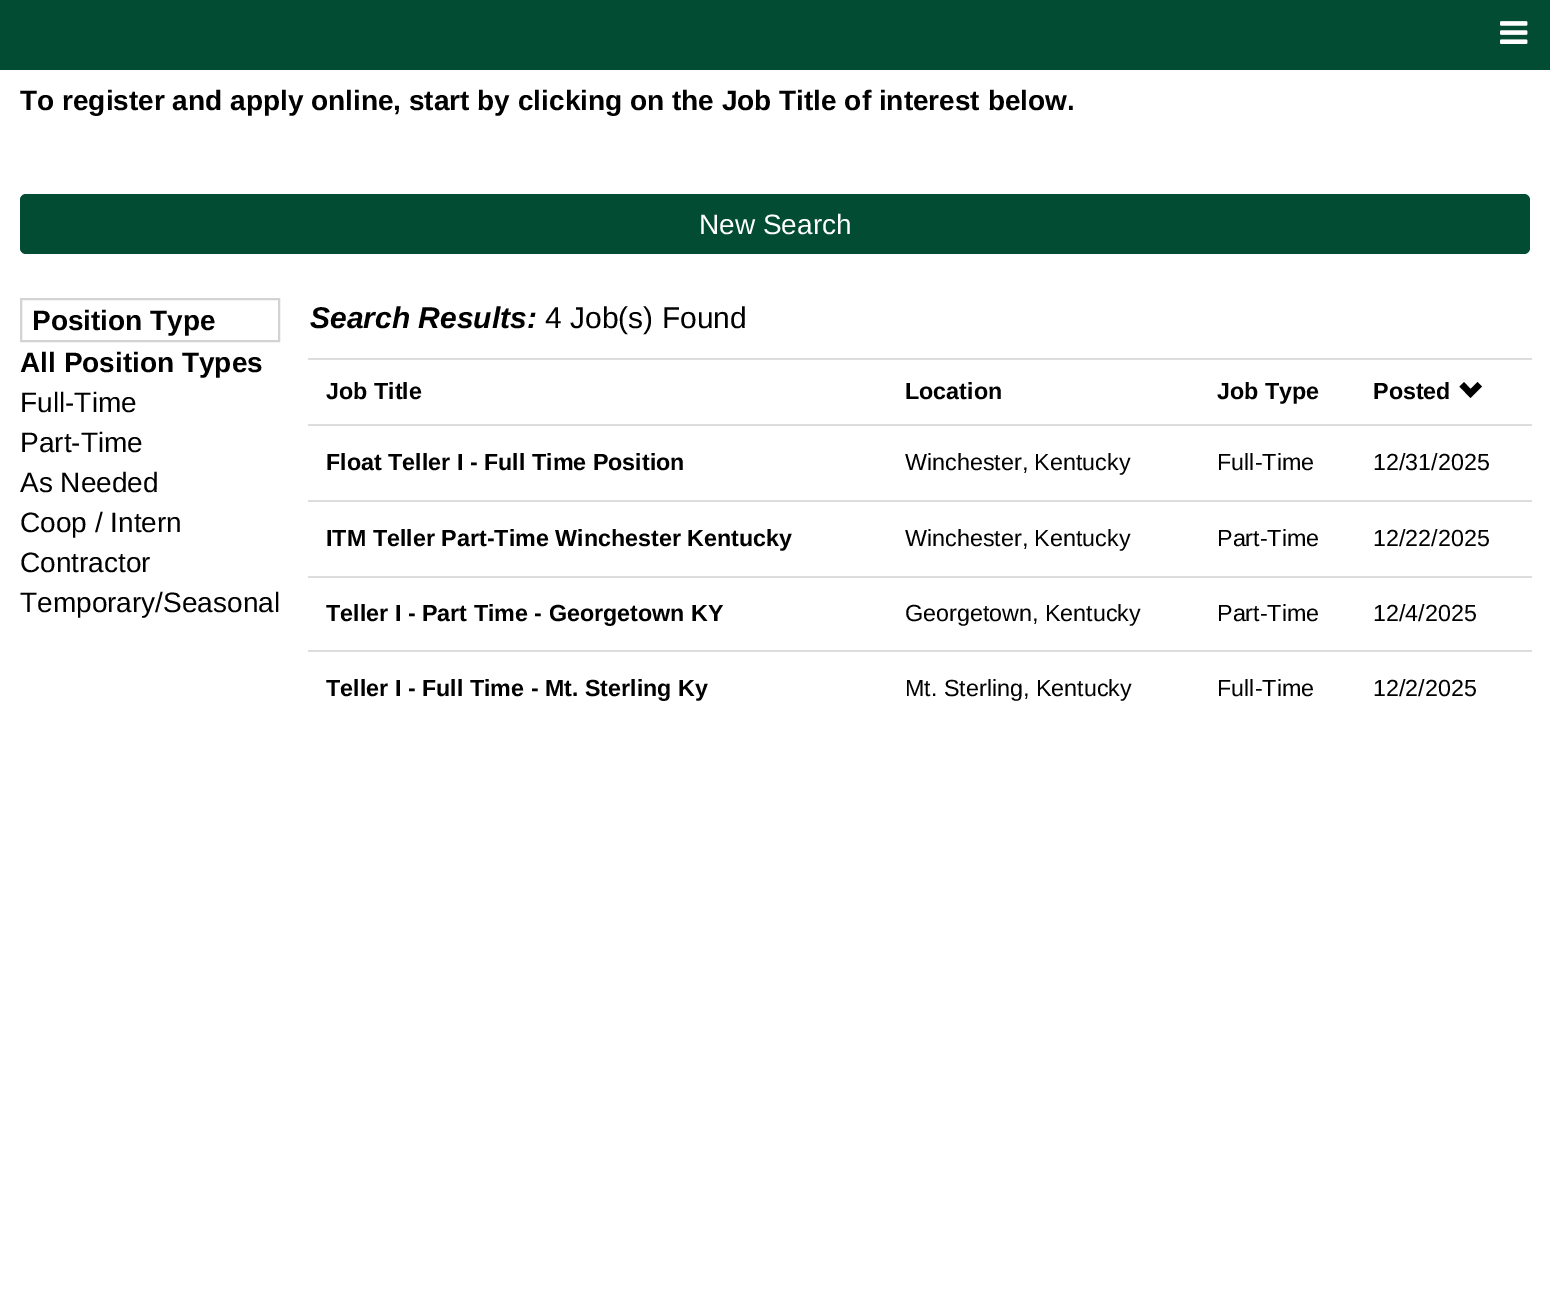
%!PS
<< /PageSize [1550 1302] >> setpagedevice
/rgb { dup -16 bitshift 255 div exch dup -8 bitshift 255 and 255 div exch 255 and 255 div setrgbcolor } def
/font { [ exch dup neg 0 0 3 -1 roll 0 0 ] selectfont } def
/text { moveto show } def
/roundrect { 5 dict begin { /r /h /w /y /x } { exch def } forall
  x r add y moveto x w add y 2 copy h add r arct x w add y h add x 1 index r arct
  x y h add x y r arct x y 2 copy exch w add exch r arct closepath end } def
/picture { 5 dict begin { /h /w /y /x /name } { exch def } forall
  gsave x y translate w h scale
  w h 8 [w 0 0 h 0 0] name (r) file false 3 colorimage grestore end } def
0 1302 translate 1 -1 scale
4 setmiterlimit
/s1 { /LiberationSans-Bold 28 font 16#000000 rgb } def
/s2 { /LiberationSans-Regular 28 font 16#FFFFFF rgb } def
/s3 { /LiberationSans-Regular 28 font 16#000000 rgb } def
/s4 { /LiberationSans-BoldItalic 30 font 16#000000 rgb } def
/s5 { /LiberationSans-Regular 30 font 16#000000 rgb } def
/s6 { /LiberationSans-Bold 23.3 font 16#000000 rgb } def
/s7 { /LiberationSans-Regular 23.3 font 16#000000 rgb } def
16#FFFFFF rgb
0 0 1550 1302 rectfill
16#024C33 rgb
0 0 1550 70 rectfill
(pic1.raw) 1500 21 28 23 picture
s1
(To register and apply online, start by clicking on the Job Title of interest below.) 20 110 text
16#024C33 rgb
20 194 1510 60 6 roundrect fill
s2
(New Search) 699 234 text
16#D3D3D3 rgb
2 setlinewidth
21 299 258 42 rectstroke
s1
(Position Type) 32 330 text
(All Position Types) 20 372 text
s3
(Full-Time) 20 412 text
(Part-Time) 20 452 text
(As Needed) 20 492 text
(Coop / Intern) 20 532 text
(Contractor) 20 572 text
(Temporary/Seasonal) 20 612 text
s4
(Search Results:) 310 328 text
s5
(4 Job\(s\) Found) 545 328 text
s6
(Job Title) 326 399 text
(Location) 905 399 text
(Job Type) 1217 399 text
16#DDDDDD rgb
308 358 1224 2 rectfill
s6
(Posted) 1373 399 text
1470.5 398 moveto 1482 386.5 lineto 1477.5 382 lineto 1470.5 389 lineto 1464 382 lineto 1459.5 386.5 lineto closepath fill
(Float Teller I - Full Time Position) 326 470 text
s7
(Winchester, Kentucky) 905 470 text
(Full-Time) 1217 470 text
16#DDDDDD rgb
308 424 1224 2 rectfill
s7
(12/31/2025) 1373 470 text
s6
(ITM Teller Part-Time Winchester Kentucky) 326 546 text
s7
(Winchester, Kentucky) 905 546 text
(Part-Time) 1217 546 text
16#DDDDDD rgb
308 500 1224 2 rectfill
s7
(12/22/2025) 1373 546 text
s6
(Teller I - Part Time - Georgetown KY) 326 621 text
s7
(Georgetown, Kentucky) 905 621 text
(Part-Time) 1217 621 text
16#DDDDDD rgb
308 576 1224 2 rectfill
s7
(12/4/2025) 1373 621 text
s6
(Teller I - Full Time - Mt. Sterling Ky) 326 696 text
s7
(Mt. Sterling, Kentucky) 905 696 text
(Full-Time) 1217 696 text
16#DDDDDD rgb
308 650 1224 2 rectfill
s7
(12/2/2025) 1373 696 text
showpage
